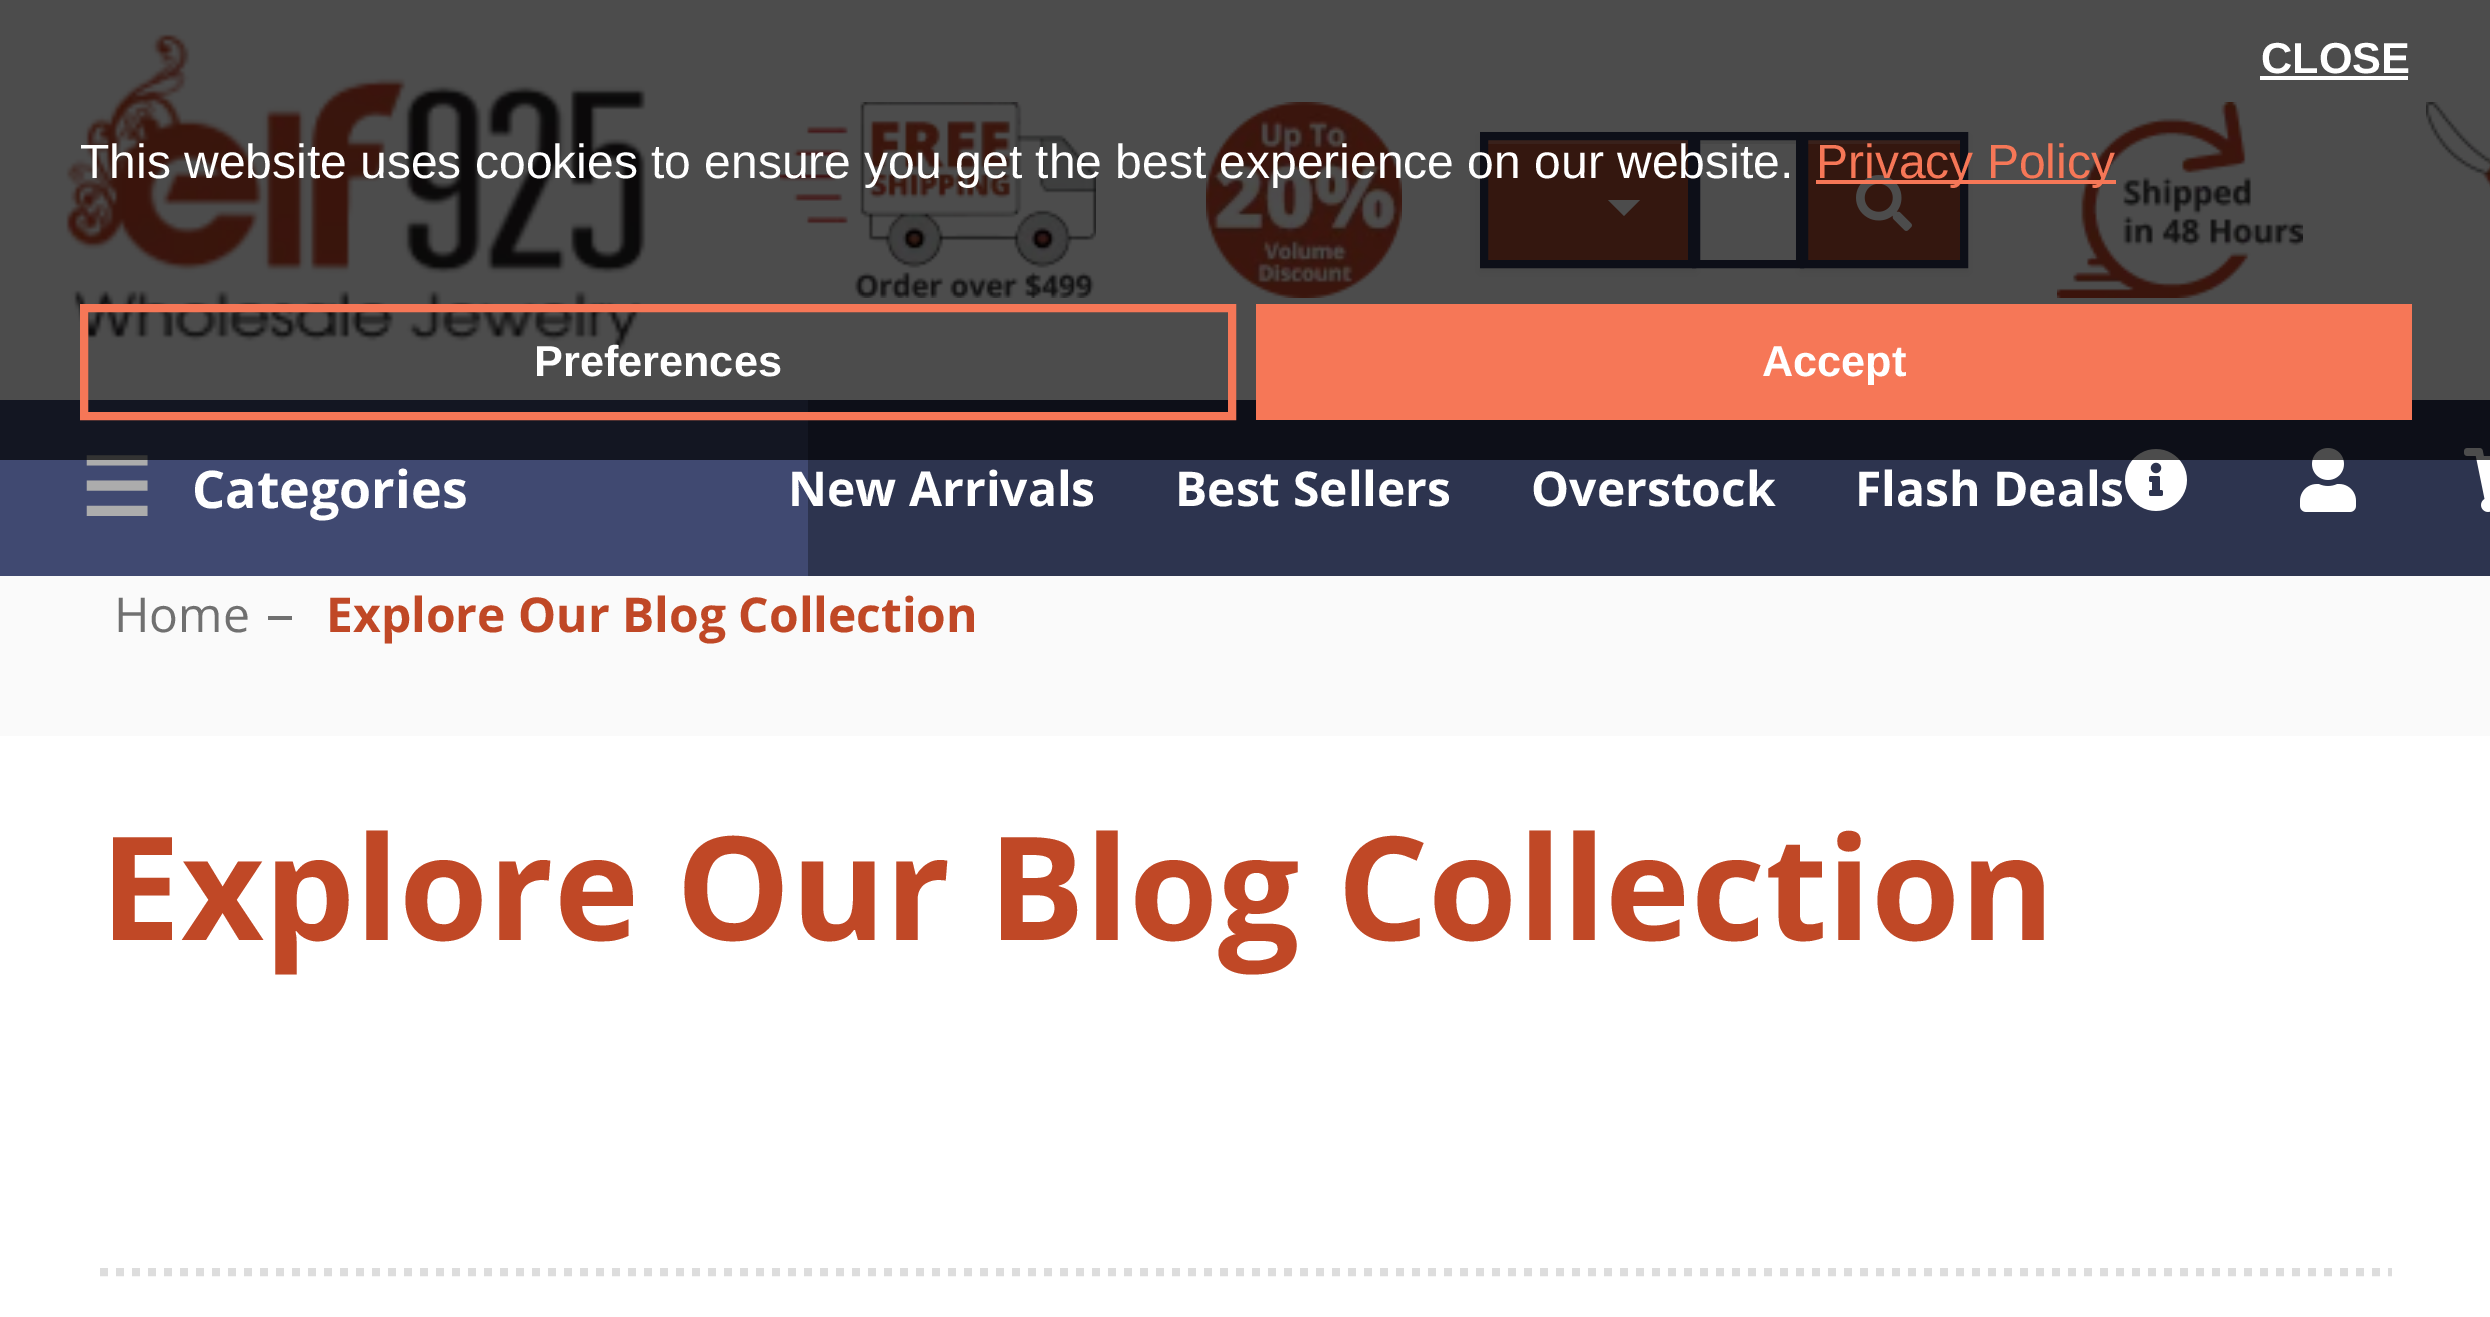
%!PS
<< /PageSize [2490 1317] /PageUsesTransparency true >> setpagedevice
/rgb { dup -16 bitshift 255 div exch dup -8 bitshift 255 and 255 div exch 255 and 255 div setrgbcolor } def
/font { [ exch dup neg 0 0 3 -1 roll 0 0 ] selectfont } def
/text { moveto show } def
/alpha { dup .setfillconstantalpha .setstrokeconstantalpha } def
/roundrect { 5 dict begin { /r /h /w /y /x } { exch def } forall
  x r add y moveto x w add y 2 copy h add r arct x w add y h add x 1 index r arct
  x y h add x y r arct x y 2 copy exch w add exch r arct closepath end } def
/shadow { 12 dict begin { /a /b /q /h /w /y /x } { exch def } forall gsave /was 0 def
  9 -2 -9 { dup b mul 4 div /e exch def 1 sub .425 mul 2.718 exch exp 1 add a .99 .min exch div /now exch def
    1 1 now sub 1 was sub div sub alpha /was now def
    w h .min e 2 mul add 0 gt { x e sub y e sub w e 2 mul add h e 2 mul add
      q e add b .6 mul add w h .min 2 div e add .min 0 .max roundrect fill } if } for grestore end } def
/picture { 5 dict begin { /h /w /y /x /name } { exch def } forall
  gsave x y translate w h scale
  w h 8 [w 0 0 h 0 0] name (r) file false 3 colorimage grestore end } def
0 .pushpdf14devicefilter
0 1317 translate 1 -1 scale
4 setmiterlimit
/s1 { /DejaVuSans-Bold 80 font 16#ACACAC rgb } def
/s2 { /LiberationSans-Bold 43.25 font 16#FFFFFF rgb } def
/s3 { /LiberationSans-Regular 48 font 16#FFFFFF rgb } def
/s4 { /LiberationSans-Regular 48 font 16#F67757 rgb } def
/s5 { /OpenSans-Bold 52 font 16#FFFFFF rgb } def
/s6 { /OpenSans-Bold 48 font 16#FFFFFF rgb } def
/s7 { /OpenSans-Regular 48 font 16#707070 rgb } def
/s8 { /OpenSans-Bold 48 font 16#C04826 rgb } def
/s9 { /OpenSans-Bold 144 font 16#C04826 rgb } def
16#FAFAFA rgb
0 0 2490 1317 rectfill
16#FFFFFF rgb
0 0 2490 400 rectfill
(pic1.raw) 66 34 580 316 picture
(pic2.raw) 780 102 316 196 picture
(pic3.raw) 1206 102 196 196 picture
16#000000 rgb
1480 136 216 136 0 4 0.05 shadow
16#B04C31 rgb
1488 144 200 116 rectfill
16#C0705A rgb
1488 140 200 4 rectfill
16#2D344F rgb
8 setlinewidth
1484 136 208 128 rectstroke
16#FFFFFF rgb
1608 200 moveto 1640 200 lineto 1624 216 lineto closepath fill
16#ECECEC rgb
1700 140 96 4 rectfill
16#2D344F rgb
1696 136 104 128 rectstroke
16#000000 rgb
1800 136 168 136 0 4 0.05 shadow
16#B04C31 rgb
1808 144 152 116 rectfill
16#C0705A rgb
1808 140 152 4 rectfill
16#2D344F rgb
1804 136 160 128 rectstroke
(pic4.raw) 1856 175 56 56 picture
(pic5.raw) 2057 102 246 196 picture
(pic6.raw) 2426 102 64 86 picture
808 400 1682 176 rectfill
16#404971 rgb
0 400 808 176 rectfill
s1
(☰) 80 516 text
(pic7.raw) 2125 449 62 62 picture
(pic8.raw) 2300 448 56 64 picture
(pic9.raw) 2464 448 26 64 picture
0.7 alpha
16#000000 rgb
0 0 2490 460 rectfill
1 alpha
s2
(CLOSE) 2261 73 text
2260 76 148 4 rectfill
16#F67757 rgb
84 308 1148 108 rectstroke
s2
(Preferences) 534 376 text
16#F67757 rgb
1256 304 1156 116 rectfill
s2
(Accept) 1762 376 text
s3
(This website uses cookies to ensure you get the best experience on our website.) 80 178 text
16#F67757 rgb
1816 180 300 4 rectfill
(Privacy Policy) 1816 178 text
s5
(Categories) 192 508 text
s6
(New Arrivals) 788 506 text
(Best Sellers) 1175 506 text
(Overstock) 1531 506 text
(Flash Deals) 1855 506 text
s7
(Home) 114 632 text
268 616 24 4 rectfill
s8
(Explore Our Blog Collection) 326 632 text
16#FFFFFF rgb
0 736 2490 581 rectfill
16#DDDDDD rgb
[8 8] 0 setdash
100 1272 moveto 2392 1272 lineto stroke
s9
(Explore Our Blog Collection) 100 940 text
.poppdf14devicefilter showpage
